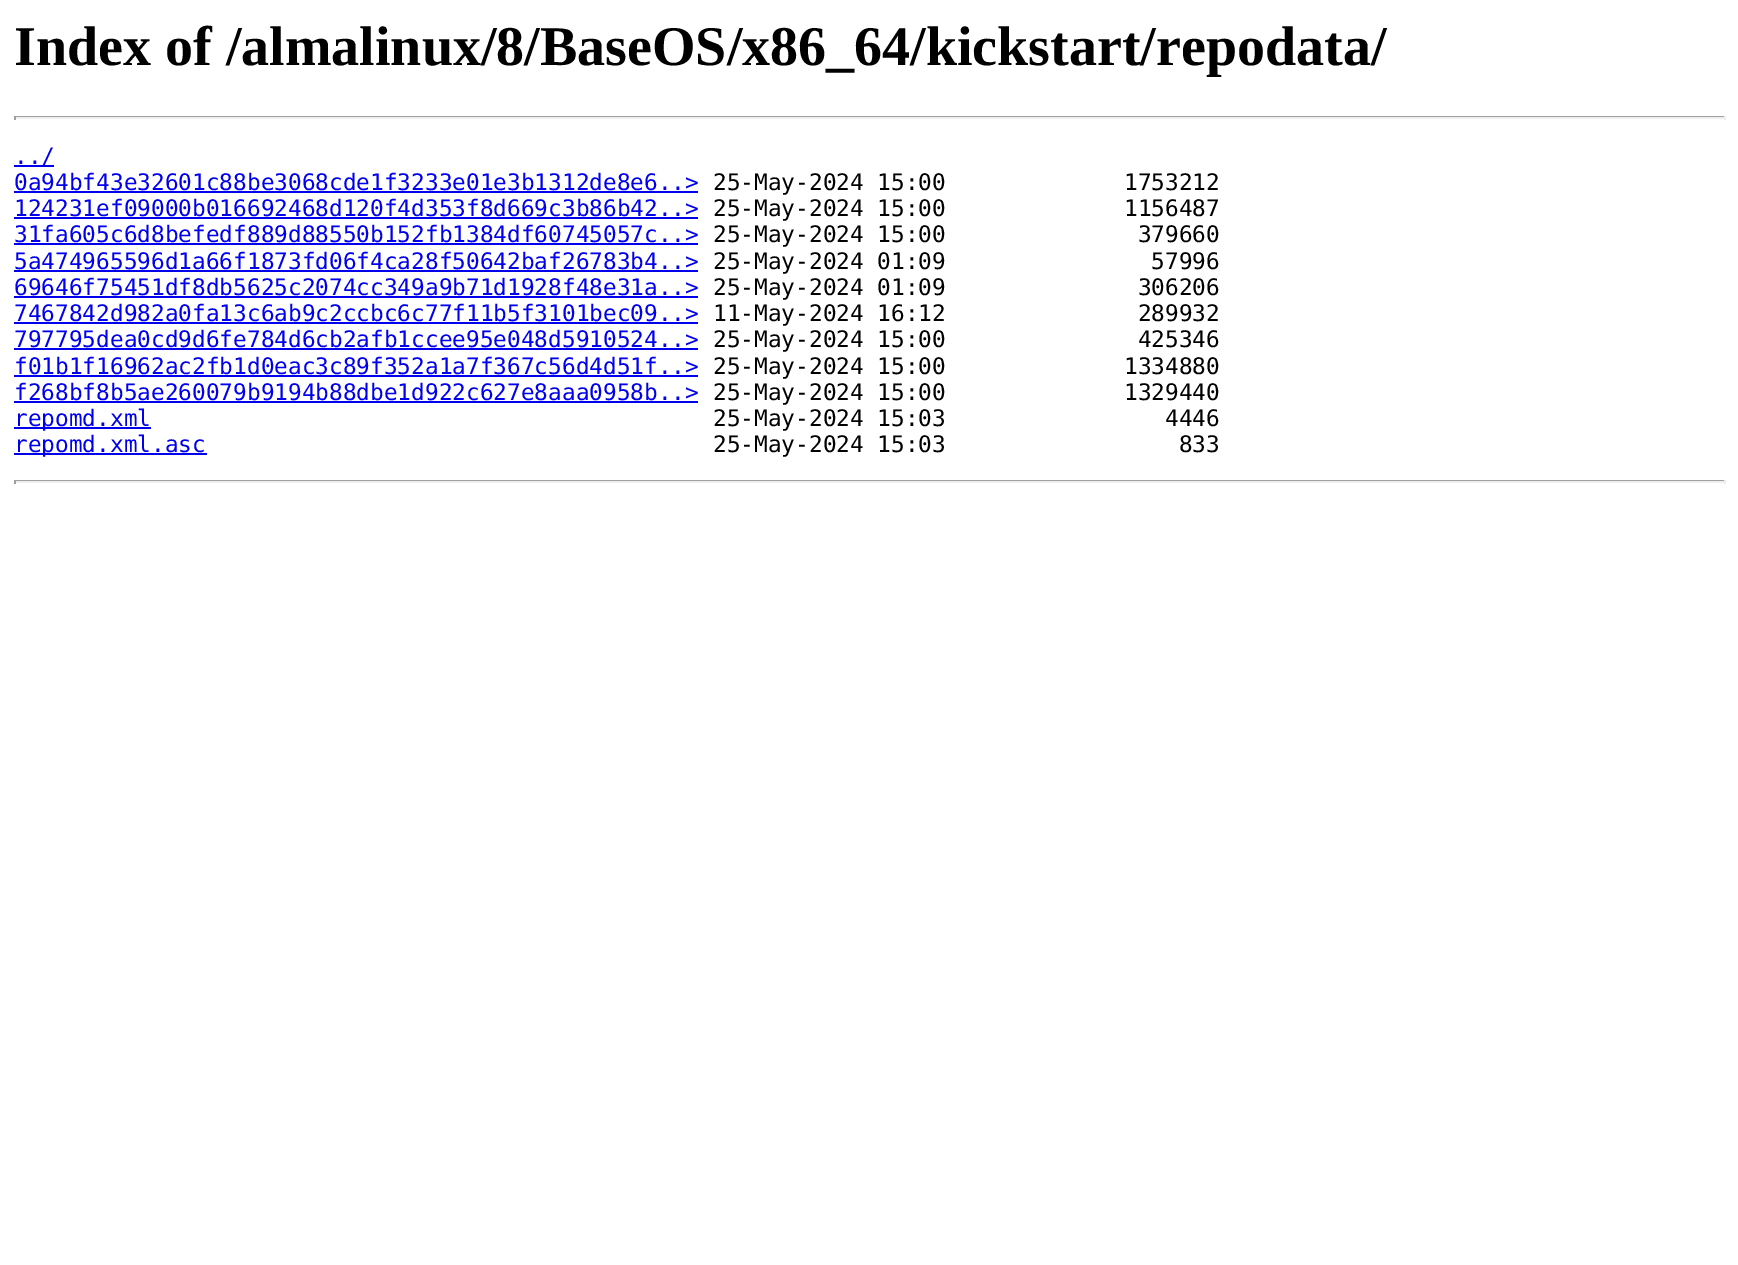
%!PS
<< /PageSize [1738 1265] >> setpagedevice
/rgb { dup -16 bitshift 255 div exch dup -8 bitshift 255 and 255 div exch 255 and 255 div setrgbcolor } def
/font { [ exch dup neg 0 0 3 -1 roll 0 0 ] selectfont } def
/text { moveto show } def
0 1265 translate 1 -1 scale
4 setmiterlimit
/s1 { /LiberationSerif-Bold 56 font 16#000000 rgb } def
/s2 { /DejaVuSansMono-Regular 22.75 font 16#0000EE rgb } def
/s3 { /DejaVuSansMono-Regular 22.75 font 16#000000 rgb } def
16#FFFFFF rgb
0 0 1738 1265 rectfill
s1
(Index of /almalinux/8/BaseOS/x86_64/kickstart/repodata/) 14 65 text
16#9F9F9F rgb
14 116 1712 1 rectfill
16#EEEEEE rgb
1724 116 2 4 rectfill
14 117 1712 2 rectfill
16#9F9F9F rgb
14 116 2 4 rectfill
16#0000EE rgb
14 165 40 2 rectfill
s2
(../) 14 164 text
(0a94bf43e32601c88be3068cde1f3233e01e3b1312de8e6..>) 14 190 text
14 191 684 2 rectfill
s3
(25-May-2024 15:00             1753212) 713 190 text
s2
(124231ef09000b016692468d120f4d353f8d669c3b86b42..>) 14 216 text
14 217 684 2 rectfill
s3
(25-May-2024 15:00             1156487) 713 216 text
s2
(31fa605c6d8befedf889d88550b152fb1384df60745057c..>) 14 242 text
14 243 684 2 rectfill
s3
(25-May-2024 15:00              379660) 713 242 text
s2
(5a474965596d1a66f1873fd06f4ca28f50642baf26783b4..>) 14 269 text
14 270 684 2 rectfill
s3
(25-May-2024 01:09               57996) 713 269 text
s2
(69646f75451df8db5625c2074cc349a9b71d1928f48e31a..>) 14 295 text
14 296 684 2 rectfill
s3
(25-May-2024 01:09              306206) 713 295 text
s2
(7467842d982a0fa13c6ab9c2ccbc6c77f11b5f3101bec09..>) 14 321 text
14 322 684 2 rectfill
s3
(11-May-2024 16:12              289932) 713 321 text
s2
(797795dea0cd9d6fe784d6cb2afb1ccee95e048d5910524..>) 14 347 text
14 348 684 2 rectfill
s3
(25-May-2024 15:00              425346) 713 347 text
s2
(f01b1f16962ac2fb1d0eac3c89f352a1a7f367c56d4d51f..>) 14 374 text
14 375 684 2 rectfill
s3
(25-May-2024 15:00             1334880) 713 374 text
s2
(f268bf8b5ae260079b9194b88dbe1d922c627e8aaa0958b..>) 14 400 text
14 401 684 2 rectfill
s3
(25-May-2024 15:00             1329440) 713 400 text
16#0000EE rgb
14 427 137 2 rectfill
(repomd.xml) 14 426 text
s3
(25-May-2024 15:03                4446) 713 426 text
16#0000EE rgb
14 453 193 2 rectfill
(repomd.xml.asc) 14 452 text
s3
(25-May-2024 15:03                 833) 713 452 text
16#9F9F9F rgb
14 480 1712 1 rectfill
16#EEEEEE rgb
1724 480 2 4 rectfill
14 481 1712 2 rectfill
16#9F9F9F rgb
14 480 2 4 rectfill
showpage
